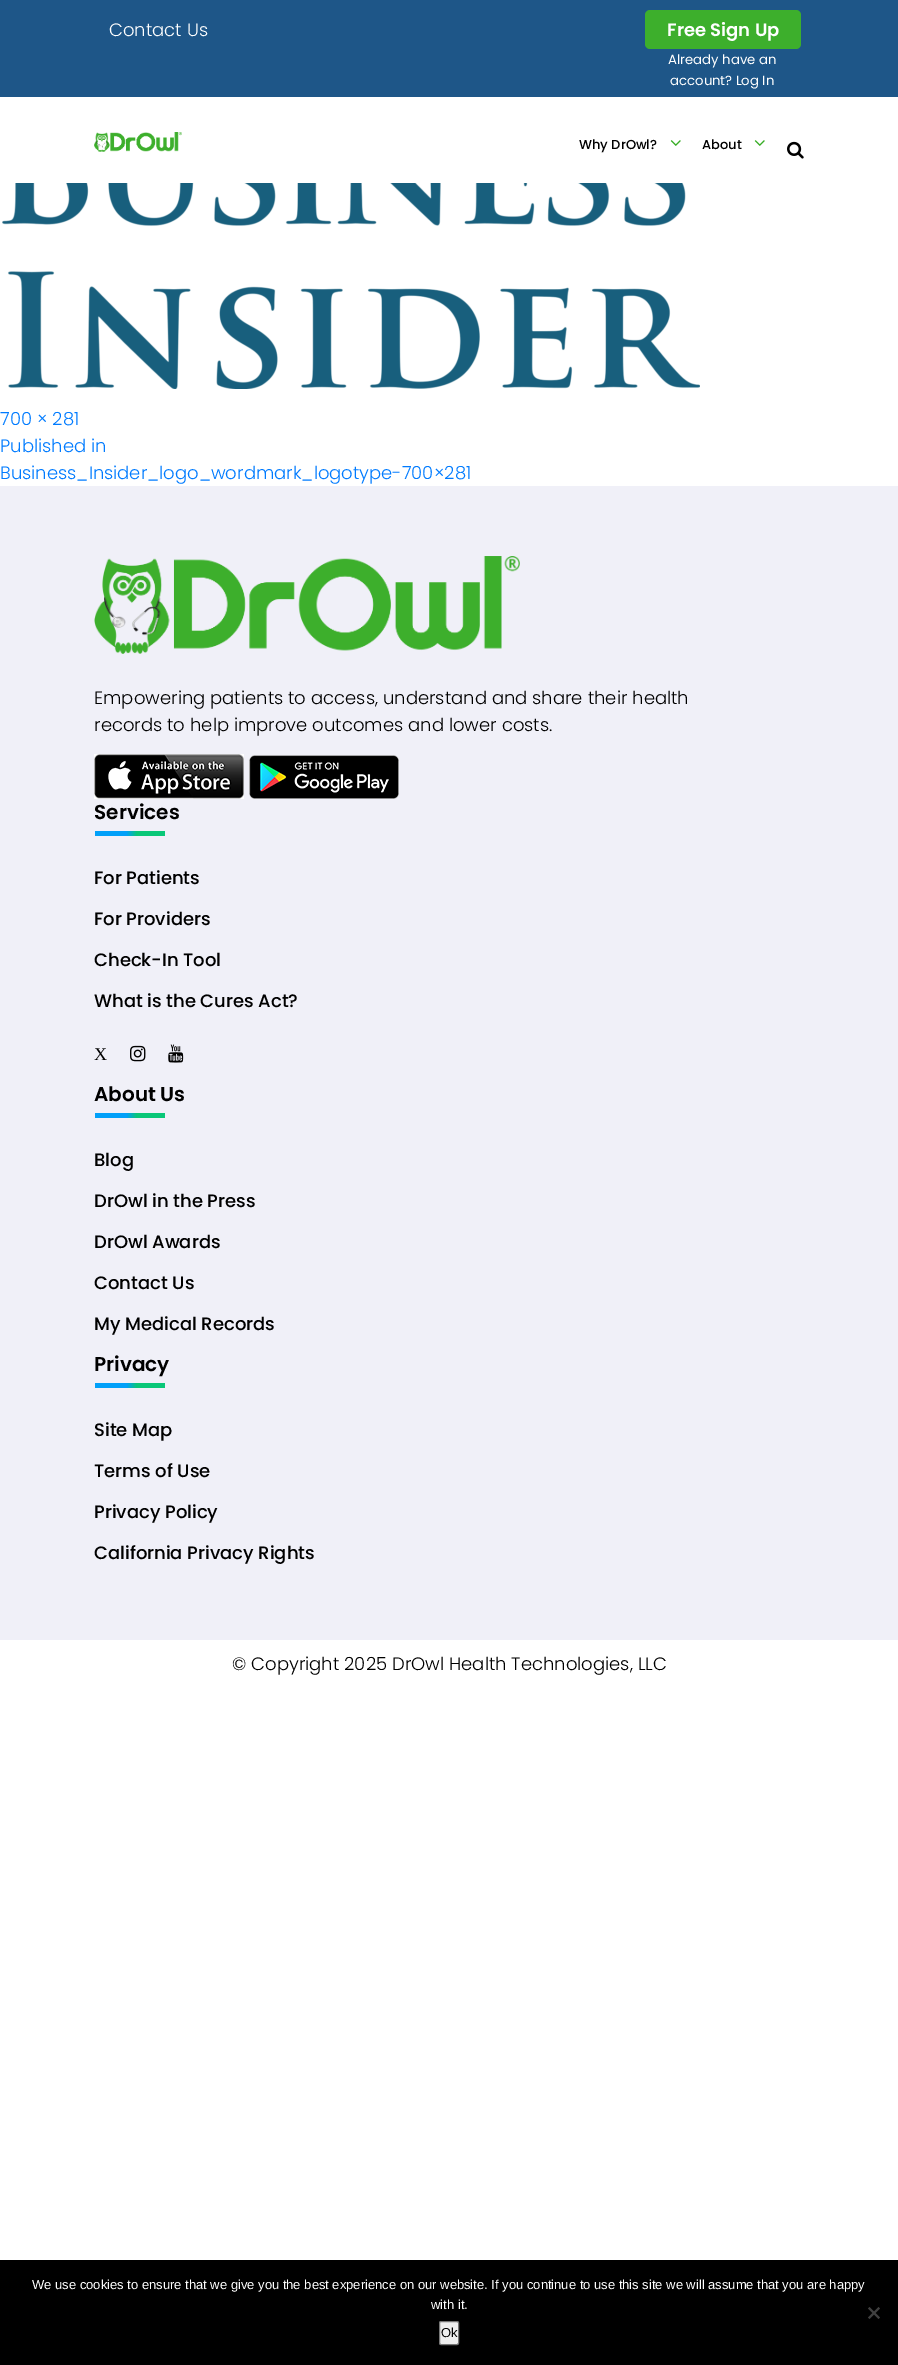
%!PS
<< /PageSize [898 2365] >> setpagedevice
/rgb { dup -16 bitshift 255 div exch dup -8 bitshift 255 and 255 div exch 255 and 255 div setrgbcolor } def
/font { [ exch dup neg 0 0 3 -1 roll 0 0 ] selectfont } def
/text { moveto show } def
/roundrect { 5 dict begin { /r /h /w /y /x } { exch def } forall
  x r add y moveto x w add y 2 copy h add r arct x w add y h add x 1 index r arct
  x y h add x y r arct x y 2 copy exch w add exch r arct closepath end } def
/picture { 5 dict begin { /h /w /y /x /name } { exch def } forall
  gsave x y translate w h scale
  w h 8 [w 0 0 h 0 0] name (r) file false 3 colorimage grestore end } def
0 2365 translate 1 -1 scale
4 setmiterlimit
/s1 { /Poppins-Light 18 font 16#FFFFFF rgb } def
/s2 { /Poppins-SemiBold 18 font 16#FFFFFF rgb } def
/s3 { /Poppins-Regular 13.25 font 16#FFFFFF rgb } def
/s4 { /Poppins-Medium 13 font 16#000000 rgb } def
/s5 { /Poppins-Light 18 font 16#007BFF rgb } def
/s6 { /Poppins-Light 18 font 16#000000 rgb } def
/s7 { /Poppins-SemiBold 20 font 16#000000 rgb } def
/s8 { /Poppins-Medium 18 font 16#000000 rgb } def
/s9 { /LiberationSerif-Regular 18 font 16#000000 rgb } def
/s10 { /LiberationSans-Regular 13 font 16#FFFFFF rgb } def
/s11 { /LiberationSans-Regular 13 font 16#000000 rgb } def
16#FFFFFF rgb
0 0 898 2365 rectfill
16#1E5688 rgb
0 0 898 97 rectfill
s1
(Contact Us) 109 36 text
16#3DAF2C rgb
645 10 156 39 5 roundrect fill
s2
(Free Sign Up) 667 36 text
s3
(Already have an) 668 64 text
(account? Log In) 670 85 text
(pic1.raw) 94 132 88 20 picture
s4
(Why DrOwl?) 579 149 text
(pic2.raw) 670 140 11 6 picture
(About) 702 149 text
(pic2.raw) 754 140 11 6 picture
(pic3.raw) 787 141 17 18 picture
(pic4.raw) 2 183 698 206 picture
s5
(700 × 281) 0 425 text
(Published in) 0 452 text
(Business_Insider_logo_wordmark_logotype-700×281) 0 479 text
16#F0F0F8 rgb
0 486 898 1154 rectfill
(pic5.raw) 94 556 426 98 picture
s6
(Empowering patients to access, understand and share their health) 94 704 text
(records to help improve outcomes and lower costs.) 94 731 text
(pic6.raw) 94 754 150 45 picture
(pic7.raw) 249 755 150 44 picture
s7
(Services) 94 819 text
gsave 95 831 moveto 165 831 lineto 165 836 lineto 95 836 lineto closepath clip newpath
<< /ShadingType 2 /ColorSpace /DeviceRGB /Coords [95 834 165 834] /Extend [true true] /Function << /FunctionType 3 /Domain [0 1] /Functions [<< /FunctionType 2 /Domain [0 1] /C0 [0.004 0.627 0.976] /C1 [0.004 0.627 0.976] /N 1 >> << /FunctionType 2 /Domain [0 1] /C0 [0.004 0.627 0.976] /C1 [0.035 0.78 0.471] /N 1 >> << /FunctionType 2 /Domain [0 1] /C0 [0.035 0.78 0.471] /C1 [0.035 0.78 0.471] /N 1 >>] /Bounds [0.45 0.6] /Encode [0 1 0 1 0 1] >> >> shfill grestore
s8
(For Patients) 94 884 text
(For Providers) 94 925 text
(Check-In Tool) 94 966 text
(What is the Cures Act?) 94 1007 text
s9
(X) 94 1060 text
(pic8.raw) 130 1045 16 17 picture
(pic9.raw) 168 1044 16 19 picture
s7
(About Us) 94 1101 text
gsave 95 1113 moveto 165 1113 lineto 165 1118 lineto 95 1118 lineto closepath clip newpath
<< /ShadingType 2 /ColorSpace /DeviceRGB /Coords [95 1116 165 1116] /Extend [true true] /Function << /FunctionType 3 /Domain [0 1] /Functions [<< /FunctionType 2 /Domain [0 1] /C0 [0.004 0.627 0.976] /C1 [0.004 0.627 0.976] /N 1 >> << /FunctionType 2 /Domain [0 1] /C0 [0.004 0.627 0.976] /C1 [0.035 0.78 0.471] /N 1 >> << /FunctionType 2 /Domain [0 1] /C0 [0.035 0.78 0.471] /C1 [0.035 0.78 0.471] /N 1 >>] /Bounds [0.45 0.6] /Encode [0 1 0 1 0 1] >> >> shfill grestore
s8
(Blog) 94 1166 text
(DrOwl in the Press) 94 1207 text
(DrOwl Awards) 94 1248 text
(Contact Us) 94 1289 text
(My Medical Records) 94 1330 text
s7
(Privacy) 94 1371 text
gsave 95 1383 moveto 165 1383 lineto 165 1388 lineto 95 1388 lineto closepath clip newpath
<< /ShadingType 2 /ColorSpace /DeviceRGB /Coords [95 1386 165 1386] /Extend [true true] /Function << /FunctionType 3 /Domain [0 1] /Functions [<< /FunctionType 2 /Domain [0 1] /C0 [0.004 0.627 0.976] /C1 [0.004 0.627 0.976] /N 1 >> << /FunctionType 2 /Domain [0 1] /C0 [0.004 0.627 0.976] /C1 [0.035 0.78 0.471] /N 1 >> << /FunctionType 2 /Domain [0 1] /C0 [0.035 0.78 0.471] /C1 [0.035 0.78 0.471] /N 1 >>] /Bounds [0.45 0.6] /Encode [0 1 0 1 0 1] >> >> shfill grestore
s8
(Site Map) 94 1436 text
(Terms of Use) 94 1477 text
(Privacy Policy) 94 1518 text
(California Privacy Rights) 94 1559 text
s6
(© Copyright 2025 DrOwl Health Technologies, LLC) 232 1670 text
0 2260 898 105 rectfill
s10
(We use cookies to ensure that we give you the best experience on our website. If you continue to use this site we will assume that you are happy) 32 2289 text
(with it.) 431 2309 text
16#404040 rgb
878.5 2307 moveto 880 2308.5 lineto 869.5 2319 lineto 868 2317.5 lineto closepath fill
868 2308.5 moveto 869.5 2307 lineto 880 2317.5 lineto 878.5 2319 lineto closepath fill
16#EFEFEF rgb
439.5 2321.5 19 23 1.5 roundrect gsave fill grestore
16#767676 rgb
stroke
s11
(Ok) 441 2337 text
showpage
